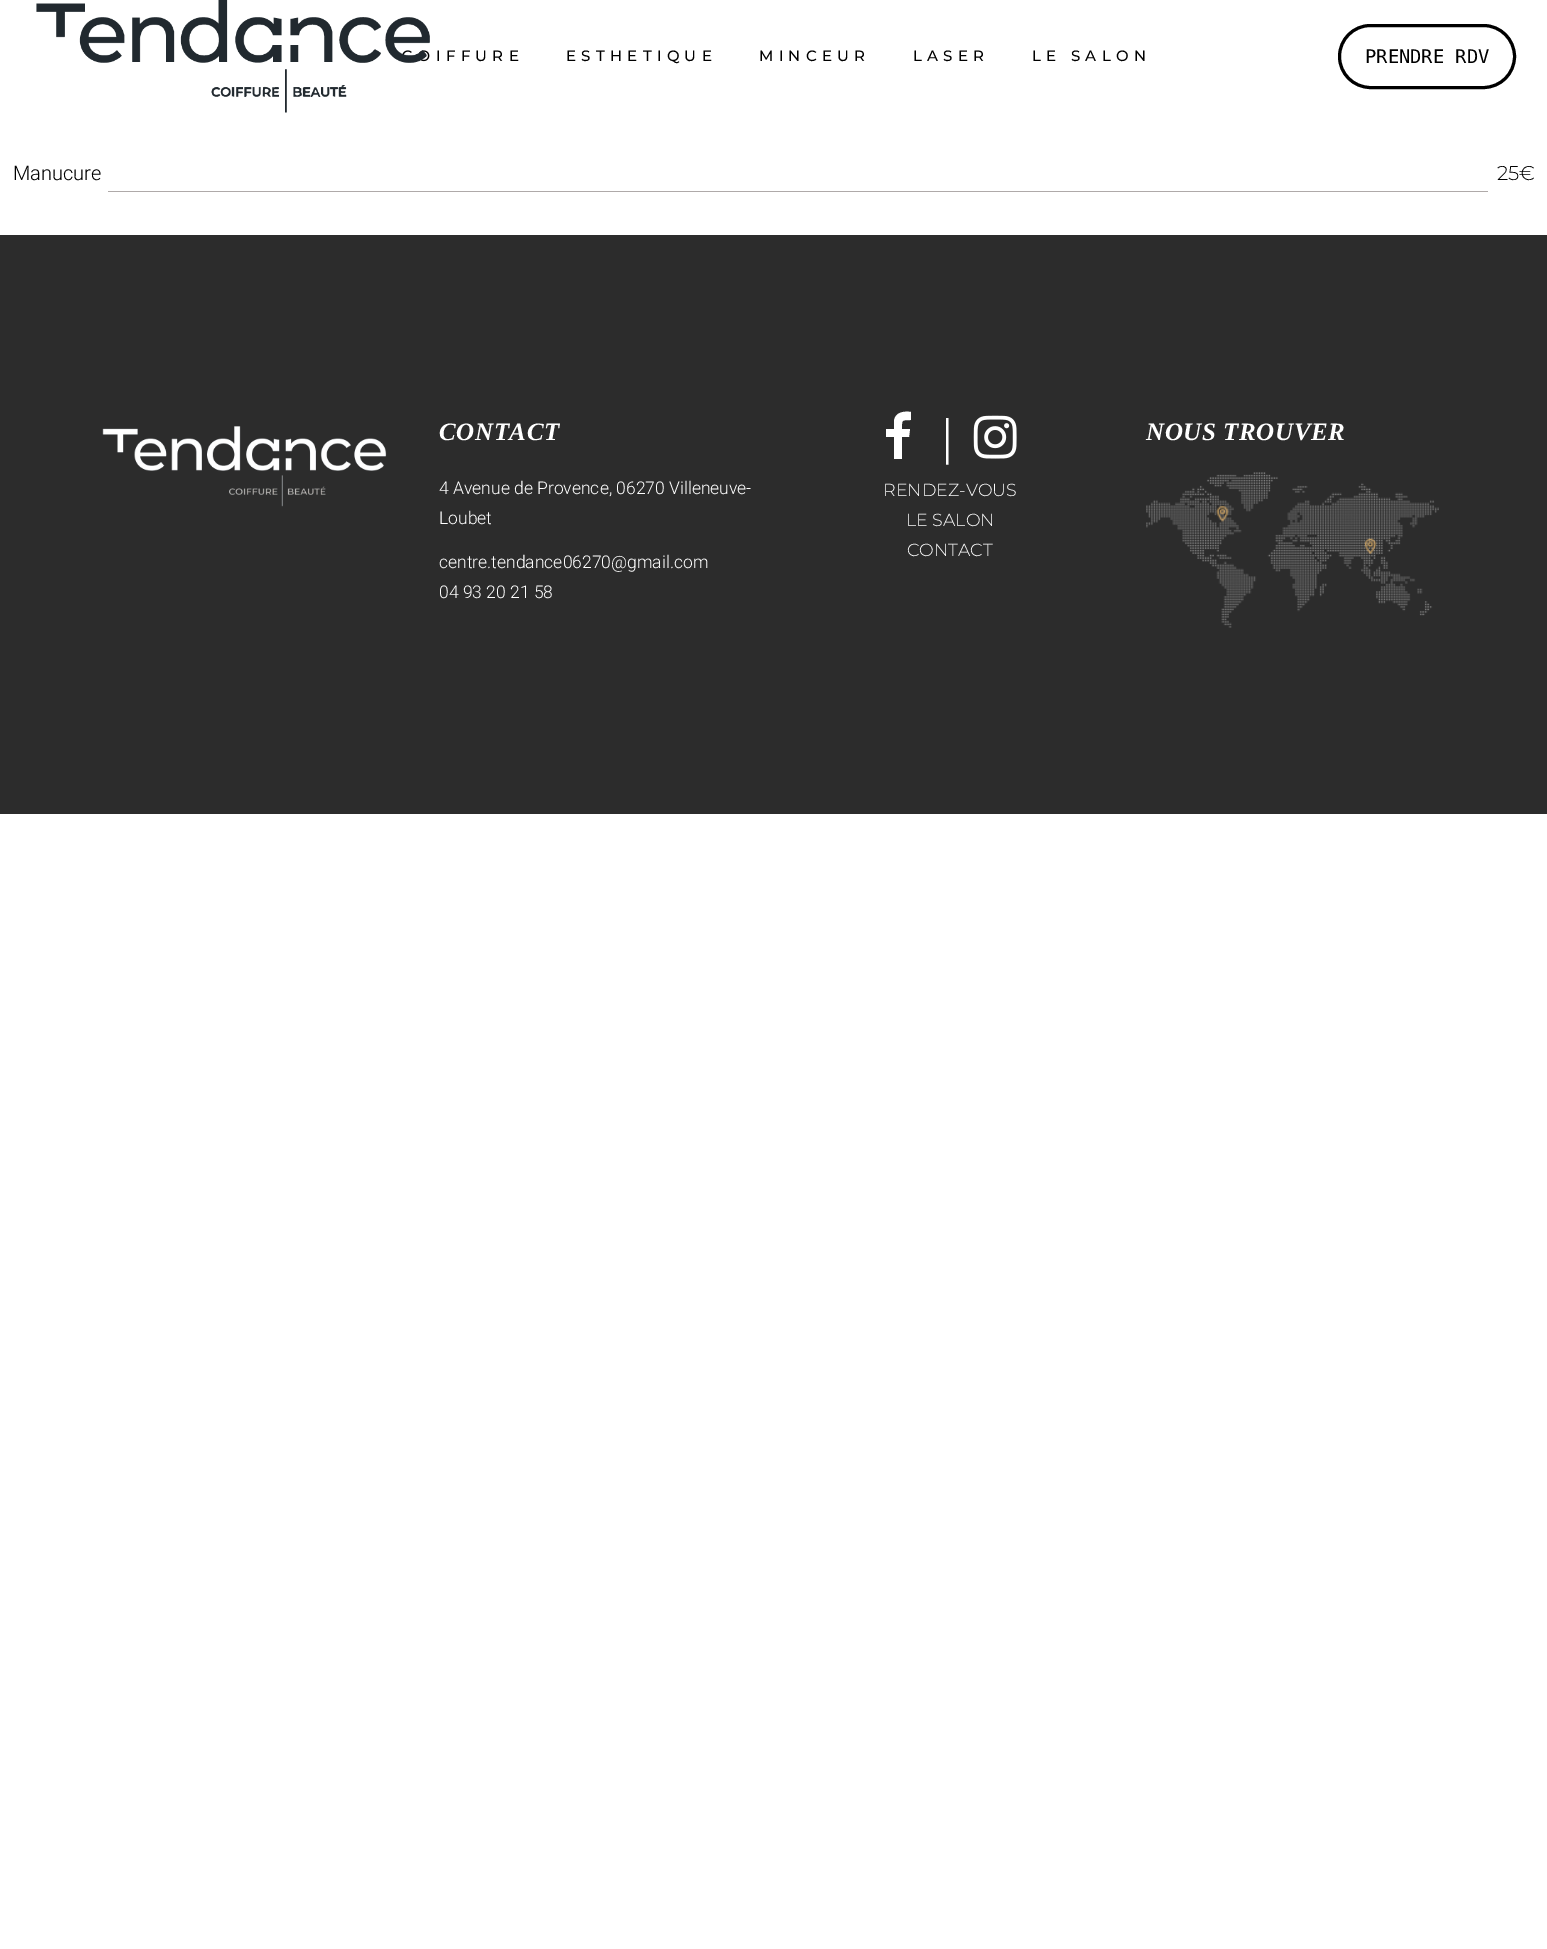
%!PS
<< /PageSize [1547 1949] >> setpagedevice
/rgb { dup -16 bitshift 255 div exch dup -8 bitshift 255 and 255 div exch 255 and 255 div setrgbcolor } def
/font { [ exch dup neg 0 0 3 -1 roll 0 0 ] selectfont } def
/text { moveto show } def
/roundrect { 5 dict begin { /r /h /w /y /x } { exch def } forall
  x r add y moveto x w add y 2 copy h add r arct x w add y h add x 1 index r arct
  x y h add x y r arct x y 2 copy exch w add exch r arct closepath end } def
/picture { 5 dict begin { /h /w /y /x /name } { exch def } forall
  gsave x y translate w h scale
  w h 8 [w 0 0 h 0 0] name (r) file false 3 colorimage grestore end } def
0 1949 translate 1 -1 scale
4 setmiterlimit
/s1 { /DejaVuSansMono-Regular 18.75 font 16#000000 rgb } def
/s2 { /Roboto-Light 20 font 16#000000 rgb } def
/s3 { /Montserrat-Light 20 font 16#000000 rgb } def
/s4 { /Roboto-Light 17.5 font 16#FFFFFF rgb } def
/s5 { /Montserrat-Light 50 font 16#FFFFFF rgb } def
/s6 { /Montserrat-Light 17.5 font 16#FFFFFF rgb } def
16#FFFFFF rgb
0 0 1547 1949 rectfill
/Montserrat-Medium 15 font
16#000000 rgb
418 61 moveto 5.25 0 (OIFFURE) ashow
(pic1.raw) 36 0 394 113 picture
566 61 moveto 5.25 0 (ESTHETIQUE) ashow
759 61 moveto 5.25 0 (MINCEUR) ashow
913 61 moveto 5.25 0 (LASER) ashow
1032 61 moveto 5.25 0 (LE SALON) ashow
3 setlinewidth
1339.5 25.5 175 62 31 roundrect stroke
s1
(PRENDRE RDV) 1365 63 text
s2
(Manucure) 13 180 text
s3
(25€) 1497 180 text
16#AFAAA9 rgb
108 191 1380 1 rectfill
16#2C2C2C rgb
0 235 1547 579 rectfill
(pic2.raw) 102 426 285 81 picture
/LiberationSerif-BoldItalic 25 font
16#FFFFFF rgb
439 440 moveto 0.6 0 (CONTACT) ashow
s4
(4 Avenue de Provence, 06270 Villeneuve-) 439 494 text
(Loubet) 439 524 text
(centre.tendance06270@gmail.com) 439 568 text
(04 93 20 21 58) 439 598 text
911 412 moveto 911 420 lineto 901 420 902 420 902 429 curveto 910 429 lineto 909 437 lineto 902 437 lineto 902 459 lineto 894 459 lineto 894 437 lineto 886 437 lineto 886 429 lineto 894 429 lineto 894 421 lineto 895 412 904 411 911 412 curveto closepath fill
s5
(|) 940 455 text
(pic3.raw) 973 415 44 44 picture
s6
(RENDEZ-VOUS) 883 496 text
(LE SALON) 906 526 text
(CONTACT) 907 556 text
/LiberationSerif-BoldItalic 25 font
1146 440 moveto 0.6 0 (NOUS TROUVER) ashow
(pic4.raw) 1146 472 293 156 picture
showpage
